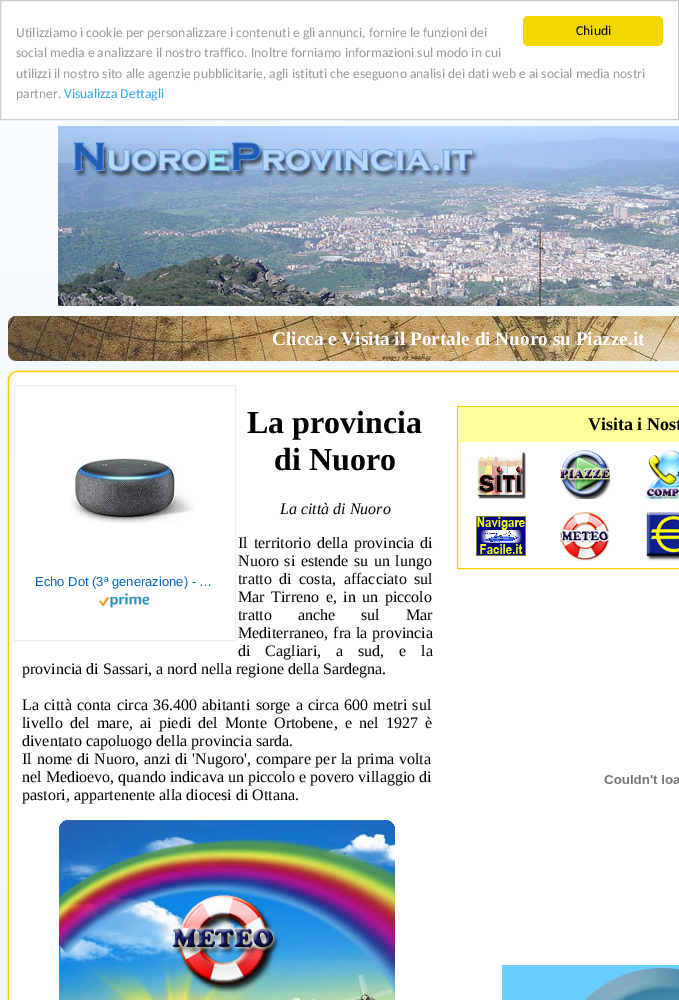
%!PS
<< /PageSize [679 1000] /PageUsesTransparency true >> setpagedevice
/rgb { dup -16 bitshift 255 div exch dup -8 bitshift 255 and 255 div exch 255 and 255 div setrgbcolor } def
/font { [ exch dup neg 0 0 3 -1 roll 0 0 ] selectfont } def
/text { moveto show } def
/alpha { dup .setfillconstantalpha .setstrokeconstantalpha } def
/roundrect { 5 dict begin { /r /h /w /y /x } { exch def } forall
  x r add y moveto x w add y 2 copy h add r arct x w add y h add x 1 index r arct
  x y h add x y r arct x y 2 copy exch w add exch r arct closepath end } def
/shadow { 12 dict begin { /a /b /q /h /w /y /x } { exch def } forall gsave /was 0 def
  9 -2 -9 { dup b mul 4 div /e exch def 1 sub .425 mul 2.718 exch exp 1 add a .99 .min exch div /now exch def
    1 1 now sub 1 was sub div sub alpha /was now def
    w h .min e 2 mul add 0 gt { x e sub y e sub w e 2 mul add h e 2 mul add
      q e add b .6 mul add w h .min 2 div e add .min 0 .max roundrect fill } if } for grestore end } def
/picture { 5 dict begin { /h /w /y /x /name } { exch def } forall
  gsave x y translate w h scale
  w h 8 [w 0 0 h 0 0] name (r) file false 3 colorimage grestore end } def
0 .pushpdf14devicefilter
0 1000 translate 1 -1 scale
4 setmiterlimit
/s1 { /Carlito-Regular 13.6 font 16#000000 rgb } def
/s2 { /Carlito-Regular 13.6 font 16#999999 rgb } def
/s3 { /Carlito-Regular 13.6 font 16#31A8F0 rgb } def
/s4 { /LiberationSerif-Bold 19.25 font 16#FFFFFF rgb } def
/s5 { /LiberationSerif-Bold 32 font 16#000000 rgb } def
/s6 { /LiberationSerif-Italic 16 font 16#000000 rgb } def
/s7 { /LiberationSerif-Regular 16 font 16#000000 rgb } def
/s8 { /LiberationSans-Regular 13 font 16#0066C0 rgb } def
/s9 { /LiberationSerif-Bold 18 font 16#000000 rgb } def
16#FFFFFF rgb
0 0 679 1000 rectfill
gsave 0 120 moveto 679 120 lineto 679 1000 lineto 0 1000 lineto closepath clip newpath
<< /ShadingType 2 /ColorSpace /DeviceRGB /Coords [339 0 340 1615] /Extend [true true] /Function << /FunctionType 3 /Domain [0 1] /Functions [<< /FunctionType 2 /Domain [0 1] /C0 [1 1 1] /C1 [0.933 0.973 1] /N 1 >> << /FunctionType 2 /Domain [0 1] /C0 [0.933 0.973 1] /C1 [0.933 0.973 1] /N 1 >> << /FunctionType 2 /Domain [0 1] /C0 [0.933 0.973 1] /C1 [0.929 0.945 0.988] /N 1 >>] /Bounds [0.35 0.52] /Encode [0 1 0 1 0 1] >> >> shfill grestore
16#CCCCCC rgb
0.5 0.5 678 119 rectstroke
16#F1D600 rgb
523 16 140 30 5 roundrect fill
s1
(Chiudi) 576 35 text
s2
(Utilizziamo i cookie per personalizzare i contenuti e gli annunci, fornire le funzioni dei) 16 37 text
(social media e analizzare il nostro traffico. Inoltre forniamo informazioni sul modo in cui) 16 57 text
(utilizzi il nostro sito alle agenzie pubblicitarie, agli istituti che eseguono analisi dei dati web e ai social media nostri) 16 78 text
(partner.) 16 98 text
s3
(Visualizza Dettagli) 64 98 text
(pic1.raw) 58 126 621 180 picture
(pic2.raw) 8 316 671 45 picture
s4
(Clicca e Visita il Portale di Nuoro su Piazze.it) 272 345 text
16#FECA04 rgb
8 371 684 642 10 1 1 shadow
16#FFFFFF rgb
8.5 371.5 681 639 9.5 roundrect gsave fill grestore
16#FECA04 rgb
stroke
s5
(La provincia) 247 433 text
(di Nuoro) 274 470 text
s6
(La città di Nuoro) 280 514 text
/LiberationSerif-Regular 16 font
238 548 moveto 2 0 32 (Il territorio della provincia di) widthshow
238 566 moveto 1.5 0 32 (Nuoro si estende su un lungo) widthshow
238 584 moveto 3.5 0 32 (tratto di costa, affacciato sul) widthshow
238 602 moveto 2.5 0 32 (Mar Tirreno e, in un piccolo) widthshow
238 620 moveto 22 0 32 (tratto anche sul Mar) widthshow
238 638 moveto 1 0 32 (Mediterraneo, fra la provincia) widthshow
238 656 moveto 11 0 32 (di Cagliari, a sud, e la) widthshow
(provincia di Sassari, a nord nella regione della Sardegna.) 22 674 text
22 710 moveto 1.25 0 32 (La città conta circa 36.400 abitanti sorge a circa 600 metri sul) widthshow
22 728 moveto 3.25 0 32 (livello del mare, ai piedi del Monte Ortobene, e nel 1927 è) widthshow
(diventato capoluogo della provincia sarda.) 22 746 text
22 764 moveto 0.75 0 32 (Il nome di Nuoro, anzi di 'Nugoro', compare per la prima volta) widthshow
(nel Medioevo, quando indicava un piccolo e povero villaggio di) 22 782 text
(pastori, appartenente alla diocesi di Ottana.) 22 800 text
(pic3.raw) 59 820 336 180 picture
16#EEEEEE rgb
14.5 385.5 221 255 rectstroke
(pic4.raw) 69 455 126 69 picture
s8
(Echo Dot \(3ª generazione\) - …) 35 586 text
(pic5.raw) 99 593 51 15 picture
16#FFCC00 rgb
457.5 406.5 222 162 rectstroke
16#FFFF99 rgb
458 407 221 35 rectfill
s9
(Visita i Nost) 588 430 text
(pic6.raw) 476 449 50 50 picture
(pic7.raw) 560 450 50 49 picture
(pic8.raw) 645 450 34 49 picture
(pic9.raw) 476 516 50 40 picture
(pic10.raw) 560 512 50 49 picture
(pic11.raw) 645 511 34 50 picture
(pic12.raw) 604 775 75 9 picture
(pic13.raw) 502 965 177 35 picture
.poppdf14devicefilter showpage
